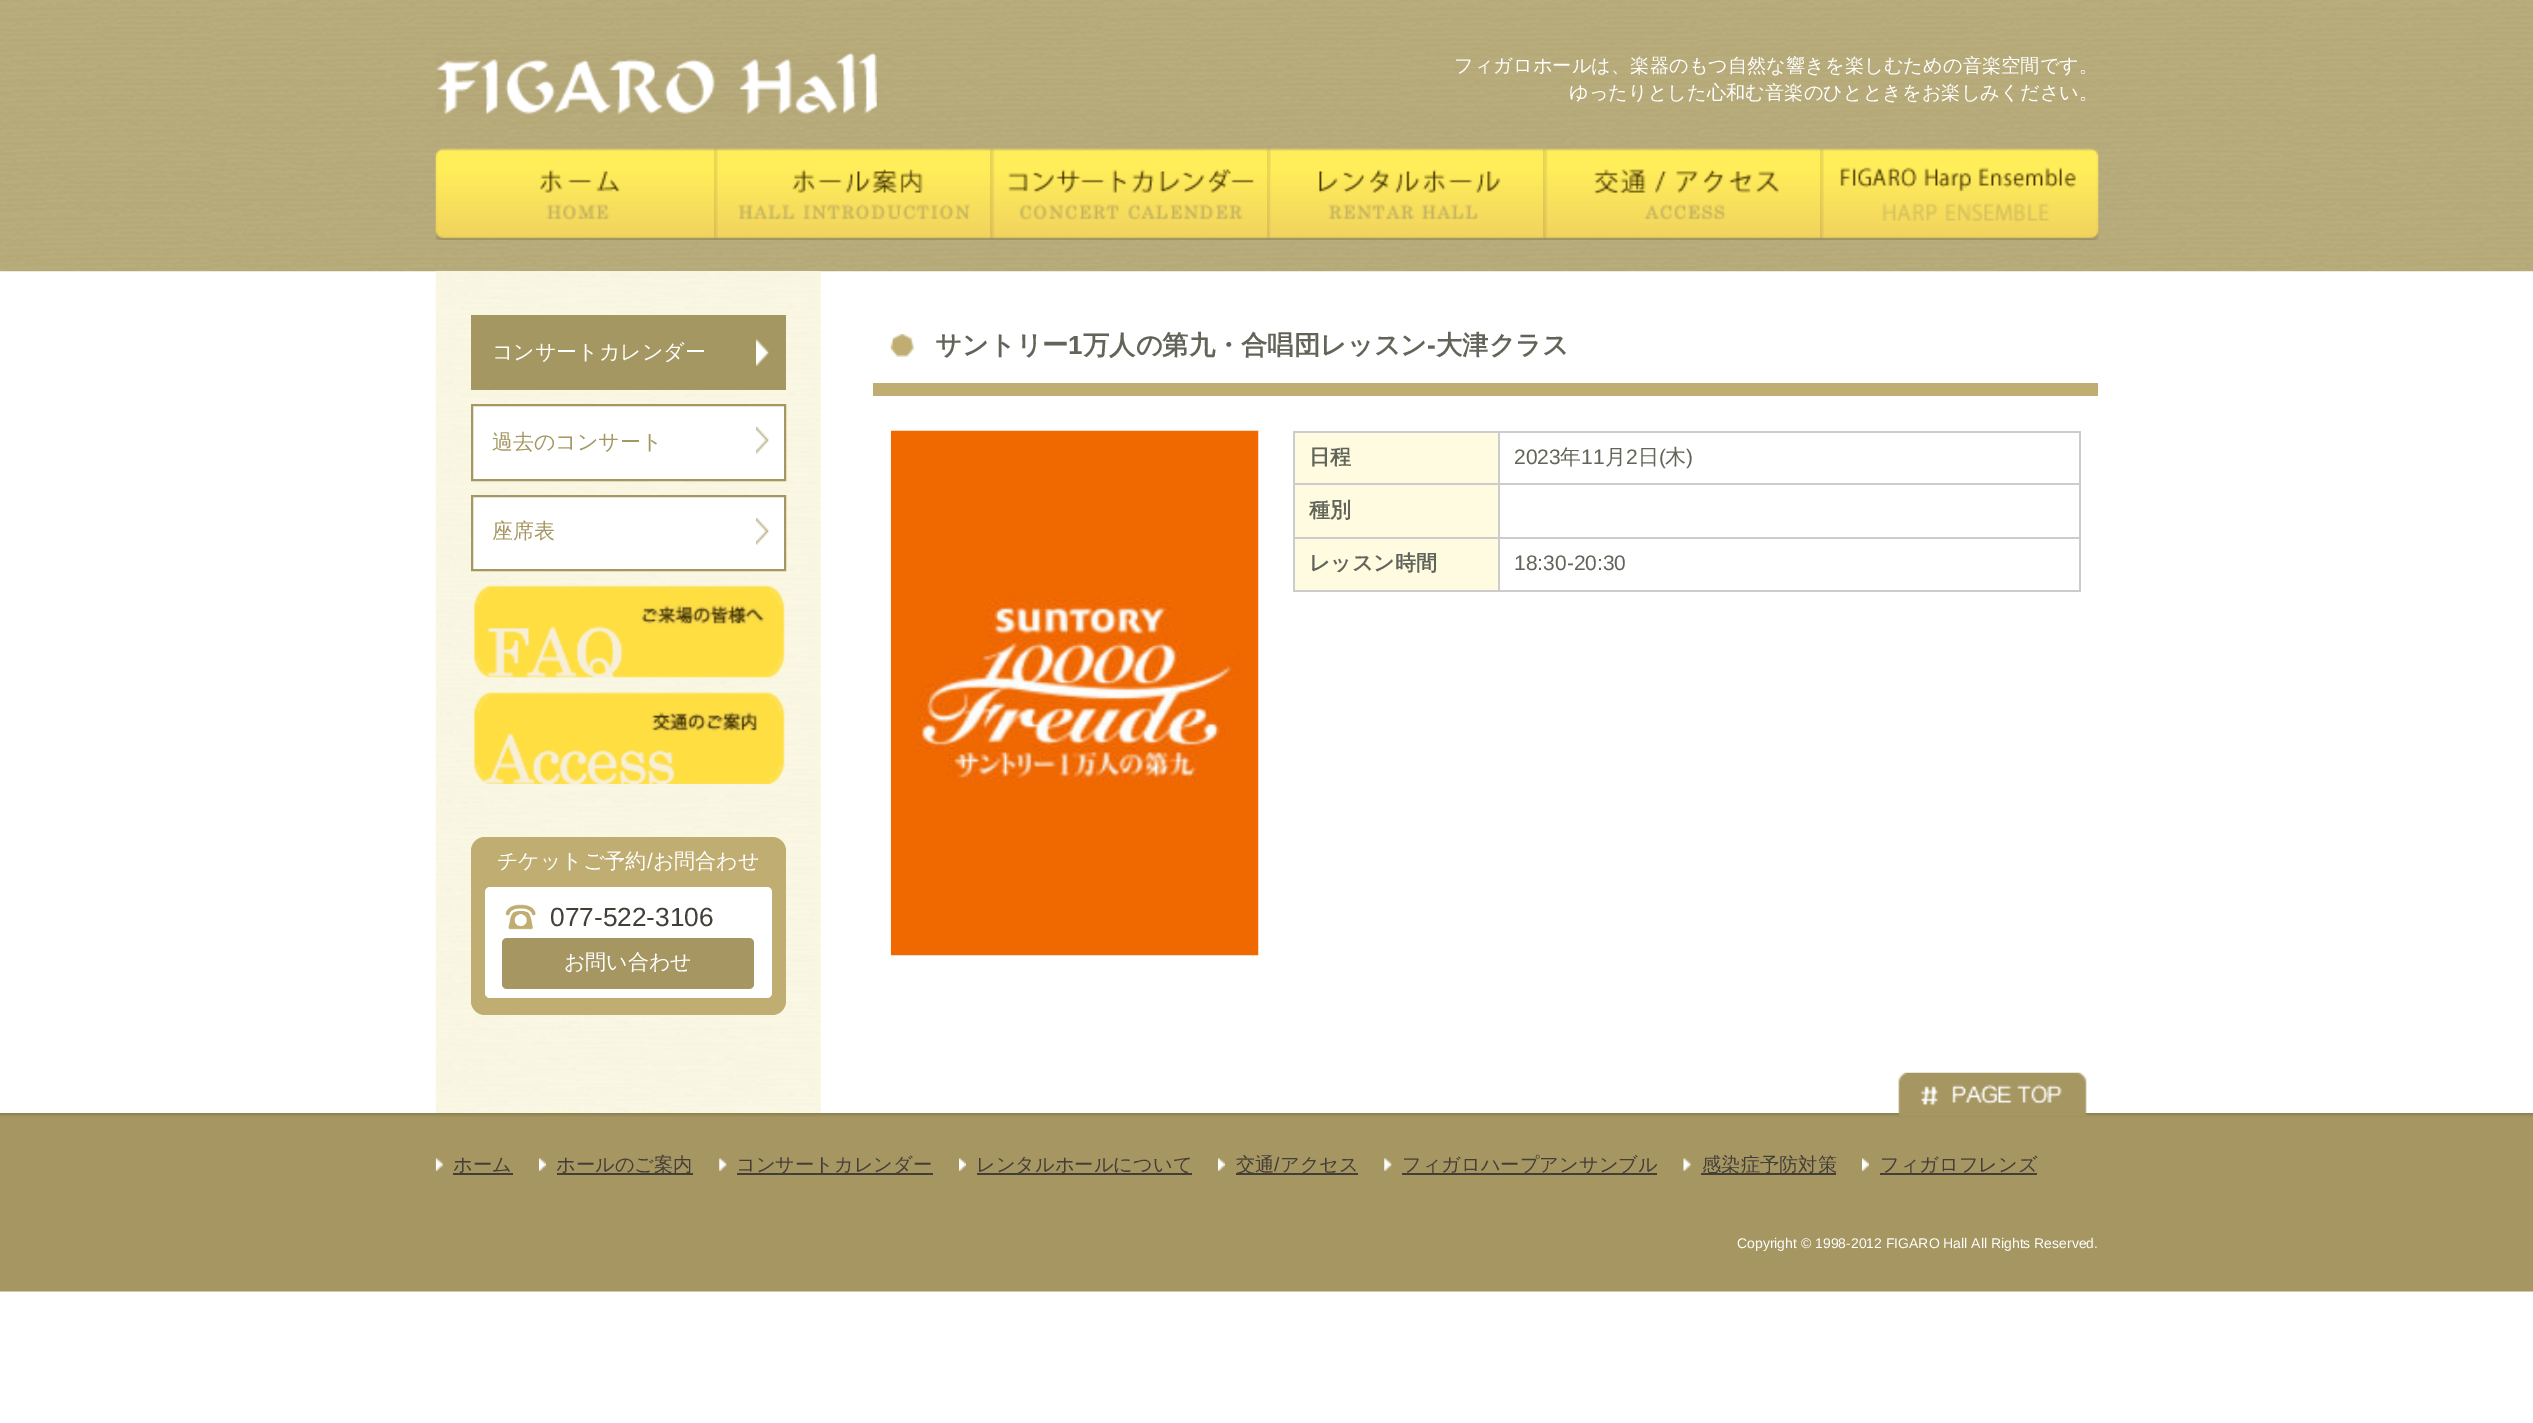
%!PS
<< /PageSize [2533 1423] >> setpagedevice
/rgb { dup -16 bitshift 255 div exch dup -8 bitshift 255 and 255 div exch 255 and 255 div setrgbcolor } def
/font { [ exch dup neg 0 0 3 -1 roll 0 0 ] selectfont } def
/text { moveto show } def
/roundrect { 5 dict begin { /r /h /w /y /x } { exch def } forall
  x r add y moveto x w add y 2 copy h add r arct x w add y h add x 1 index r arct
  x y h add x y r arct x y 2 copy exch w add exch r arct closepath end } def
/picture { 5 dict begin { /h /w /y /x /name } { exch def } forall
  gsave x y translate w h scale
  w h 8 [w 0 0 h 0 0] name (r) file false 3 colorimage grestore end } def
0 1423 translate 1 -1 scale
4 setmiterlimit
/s1 { /WenQuanYiZenHei-Medium 19.25 font 16#FFFFFF rgb } def
/s2 { /WenQuanYiZenHei-Medium 21 font 16#FFFFFF rgb } def
/s3 { /WenQuanYiZenHei-Medium 21 font 16#A49762 rgb } def
/s4 { /LiberationSans-Regular 21 font 16#FFFFFF rgb } def
/s5 { /LiberationSans-Regular 26.25 font 16#443E38 rgb } def
/s6 { /WenQuanYiZenHei-Bold 26.25 font 16#626459 rgb } def
/s7 { /LiberationSans-Bold 26.25 font 16#626459 rgb } def
/s8 { /WenQuanYiZenHei-Bold 21 font 16#626459 rgb } def
/s9 { /LiberationSans-Regular 21 font 16#626459 rgb } def
/s10 { /WenQuanYiZenHei-Medium 21 font 16#626459 rgb } def
/s11 { /WenQuanYiZenHei-Medium 19.25 font 16#443E38 rgb } def
/s12 { /LiberationSans-Regular 19.25 font 16#443E38 rgb } def
/s13 { /LiberationSans-Regular 14 font 16#FFFFFF rgb } def
16#FFFFFF rgb
0 0 2533 1423 rectfill
(pic1.raw) 0 0 2533 272 picture
(pic2.raw) 436 52 441 62 picture
s1
(フィガロホールは、楽器のもつ自然な響きを楽しむための音楽空間です。) 1454 72 text
(ゆったりとした心和む音楽のひとときをお楽しみください。) 1569 99 text
(pic3.raw) 435 148 279 92 picture
(pic4.raw) 714 148 277 92 picture
(pic5.raw) 990 148 277 92 picture
(pic6.raw) 1267 148 277 92 picture
(pic7.raw) 1543 148 277 92 picture
(pic8.raw) 1820 148 279 92 picture
(pic9.raw) 435 271 386 842 picture
16#A49762 rgb
471 315 315 75 rectfill
(pic10.raw) 756 339 13 27 picture
s2
(コンサートカレンダー) 492 359 text
473 406 311 73 rectfill
(pic11.raw) 756 427 13 27 picture
16#A49762 rgb
2 setlinewidth
472 405 313 75 rectstroke
(過去のコンサート) 492 449 text
16#FFFFFF rgb
473 497 311 72 rectfill
(pic11.raw) 756 518 13 27 picture
16#A49762 rgb
472 496 313 74 rectstroke
(座席表) 492 538 text
(pic12.raw) 473 584 312 94 picture
(pic13.raw) 473 691 312 93 picture
16#BFAD71 rgb
471 837 315 178 14 roundrect fill
s2
(チケットご予約) 497 868 text
s4
(/) 647 868 text
s2
(お問合わせ) 653 868 text
485 887 287 111 5 roundrect fill
(pic14.raw) 505 904 31 26 picture
s5
(077-522-3106) 550 926 text
16#A69662 rgb
502 938 252 51 5 roundrect fill
s2
(お問い合わせ) 564 969 text
(pic15.raw) 890 334 24 23 picture
16#BFAD71 rgb
873 383 1225 13 rectfill
s6
(サントリー) 935 354 text
s7
(1) 1068 354 text
s6
(万人の第九・合唱団レッスン) 1083 354 text
s7
(-) 1427 354 text
s6
(大津クラス) 1436 354 text
(pic16.raw) 890 430 369 526 picture
16#FEFBE1 rgb
1295 433 203 50 rectfill
16#CCCCCC rgb
1498 431 583 2 rectfill
1498 483 583 2 rectfill
1498 537 583 2 rectfill
2079 537 2 55 rectfill
1498 590 583 2 rectfill
1498 537 2 55 rectfill
1293 537 207 2 rectfill
1498 483 2 56 rectfill
1293 483 207 2 rectfill
1498 431 2 54 rectfill
1293 431 207 2 rectfill
1293 590 207 2 rectfill
1293 537 2 55 rectfill
1293 483 2 56 rectfill
1293 431 2 54 rectfill
s8
(日程) 1309 464 text
16#CCCCCC rgb
2079 483 2 56 rectfill
2079 431 2 54 rectfill
s9
(2023) 1514 464 text
s10
(年) 1560 464 text
s9
(11) 1581 464 text
s10
(月) 1605 464 text
s9
(2) 1626 464 text
s10
(日) 1638 464 text
s9
(\() 1659 464 text
s10
(木) 1665 464 text
s9
(\)) 1686 464 text
16#FEFBE1 rgb
1295 485 203 52 rectfill
s8
(種別) 1309 517 text
16#FEFBE1 rgb
1295 539 203 51 rectfill
s8
(レッスン時間) 1309 570 text
s9
(18:30-20:30) 1514 570 text
(pic17.raw) 0 1113 2533 179 picture
(pic18.raw) 1898 1072 189 44 picture
(pic19.raw) 435 1158 8 13 picture
s11
(ホーム) 453 1171 text
453 1173 60 2 rectfill
(pic20.raw) 539 1158 7 13 picture
557 1173 136 2 rectfill
(ホールのご案内) 556 1171 text
(pic21.raw) 719 1158 8 13 picture
737 1173 196 2 rectfill
(コンサートカレンダー) 736 1171 text
(pic20.raw) 959 1158 7 13 picture
977 1173 215 2 rectfill
(レンタルホールについて) 976 1171 text
(pic22.raw) 1218 1158 7 13 picture
1236 1173 122 2 rectfill
(交通) 1236 1171 text
s12
(/) 1274 1171 text
s11
(アクセス) 1280 1171 text
(pic21.raw) 1384 1158 8 13 picture
1402 1173 255 2 rectfill
(フィガロハープアンサンブル) 1402 1171 text
(pic23.raw) 1683 1158 8 13 picture
1701 1173 135 2 rectfill
(感染症予防対策) 1702 1171 text
(pic20.raw) 1862 1158 7 13 picture
1880 1173 157 2 rectfill
(フィガロフレンズ) 1880 1171 text
s13
(Copyright © 1998-2012 FIGARO Hall All Rights Reserved.) 1737 1248 text
showpage
